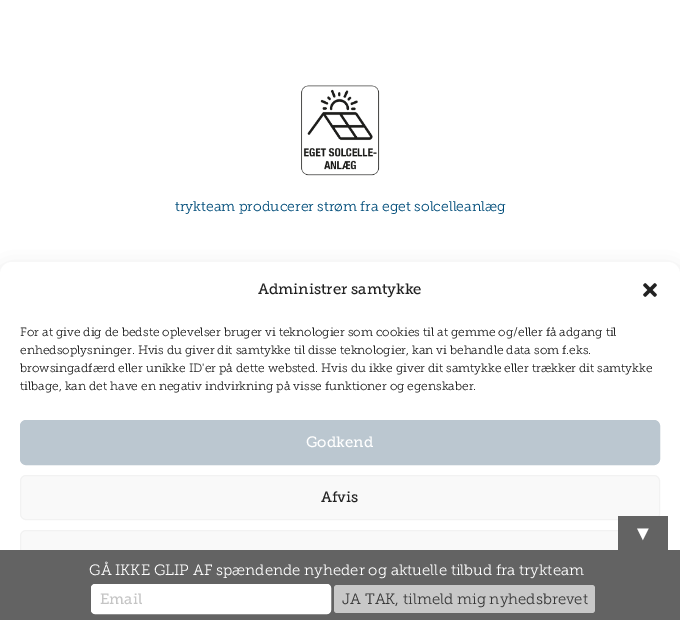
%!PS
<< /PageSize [680 620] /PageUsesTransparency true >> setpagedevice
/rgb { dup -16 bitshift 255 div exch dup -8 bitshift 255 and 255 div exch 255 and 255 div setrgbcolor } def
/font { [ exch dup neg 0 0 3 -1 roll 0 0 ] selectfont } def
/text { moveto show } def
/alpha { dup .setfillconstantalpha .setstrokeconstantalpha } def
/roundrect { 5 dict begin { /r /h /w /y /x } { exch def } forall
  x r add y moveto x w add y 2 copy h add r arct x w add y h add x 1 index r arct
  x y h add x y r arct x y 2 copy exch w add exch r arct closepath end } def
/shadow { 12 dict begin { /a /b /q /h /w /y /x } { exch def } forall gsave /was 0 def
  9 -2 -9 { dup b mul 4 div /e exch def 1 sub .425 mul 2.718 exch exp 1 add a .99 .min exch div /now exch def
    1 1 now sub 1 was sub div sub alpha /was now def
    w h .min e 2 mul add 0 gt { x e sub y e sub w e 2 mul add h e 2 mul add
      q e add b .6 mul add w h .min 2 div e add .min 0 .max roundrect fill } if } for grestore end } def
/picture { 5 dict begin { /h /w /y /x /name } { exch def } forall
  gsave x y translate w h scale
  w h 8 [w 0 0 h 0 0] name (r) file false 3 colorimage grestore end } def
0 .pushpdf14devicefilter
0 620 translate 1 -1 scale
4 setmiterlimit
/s1 { /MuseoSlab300-Light 14 font 16#004C79 rgb } def
/s2 { /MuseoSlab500-Regular 15 font 16#222222 rgb } def
/s3 { /MuseoSlab300-Light 12 font 16#222222 rgb } def
/s4 { /MuseoSlab500-Regular 15 font 16#FFFFFF rgb } def
/s5 { /LiberationSerif-Regular 20 font 16#FFFFFF rgb } def
/s6 { /MuseoSlab300-Light 15 font 16#FFFFFF rgb } def
/s7 { /MuseoSlab500-Regular 15 font 16#C5C5C5 rgb } def
/s8 { /MuseoSlab300-Light 15 font 16#373737 rgb } def
16#FFFFFF rgb
0 0 680 620 rectfill
(pic1.raw) 301 85 79 91 picture
s1
(trykteam producerer strøm fra eget solcelleanlæg) 175 211 text
16#000000 rgb
0 272 680 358 12 10 0.19 shadow
16#FFFFFF rgb
0 262 680 358 12 roundrect fill
s2
(Administrer samtykke) 258 294 text
(pic2.raw) 643 283 14 14 picture
s3
(For at give dig de bedste oplevelser bruger vi teknologier som cookies til at gemme og/eller få adgang til) 20 336 text
(enhedsoplysninger. Hvis du giver dit samtykke til disse teknologier, kan vi behandle data som f.eks.) 20 354 text
(browsingadfærd eller unikke ID'er på dette websted. Hvis du ikke giver dit samtykke eller trækker dit samtykke) 20 372 text
(tilbage, kan det have en negativ indvirkning på visse funktioner og egenskaber.) 20 390 text
16#BBC7D0 rgb
20.5 420.5 639 44 5.5 roundrect gsave fill grestore
stroke
s4
(Godkend) 306 447 text
16#F9F9F9 rgb
20.5 475.5 639 44 5.5 roundrect gsave fill grestore
16#F2F2F2 rgb
stroke
s2
(Afvis) 321 502 text
16#F9F9F9 rgb
20.5 530.5 639 44 5.5 roundrect gsave fill grestore
16#F2F2F2 rgb
stroke
16#636363 rgb
618 516 50 34 rectfill
s5
(▼) 633 540 text
16#636363 rgb
0 550 680 70 rectfill
s6
(GÅ IKKE GLIP AF spændende nyheder og aktuelle tilbud fra trykteam) 89 575 text
91.5 584.5 239 29 3.5 roundrect gsave fill grestore
stroke
s7
(Email) 100 604 text
16#C8C8C8 rgb
334 585 261 28 3 roundrect fill
s8
(JA TAK, tilmeld mig nyhedsbrevet) 342 604 text
.poppdf14devicefilter showpage
